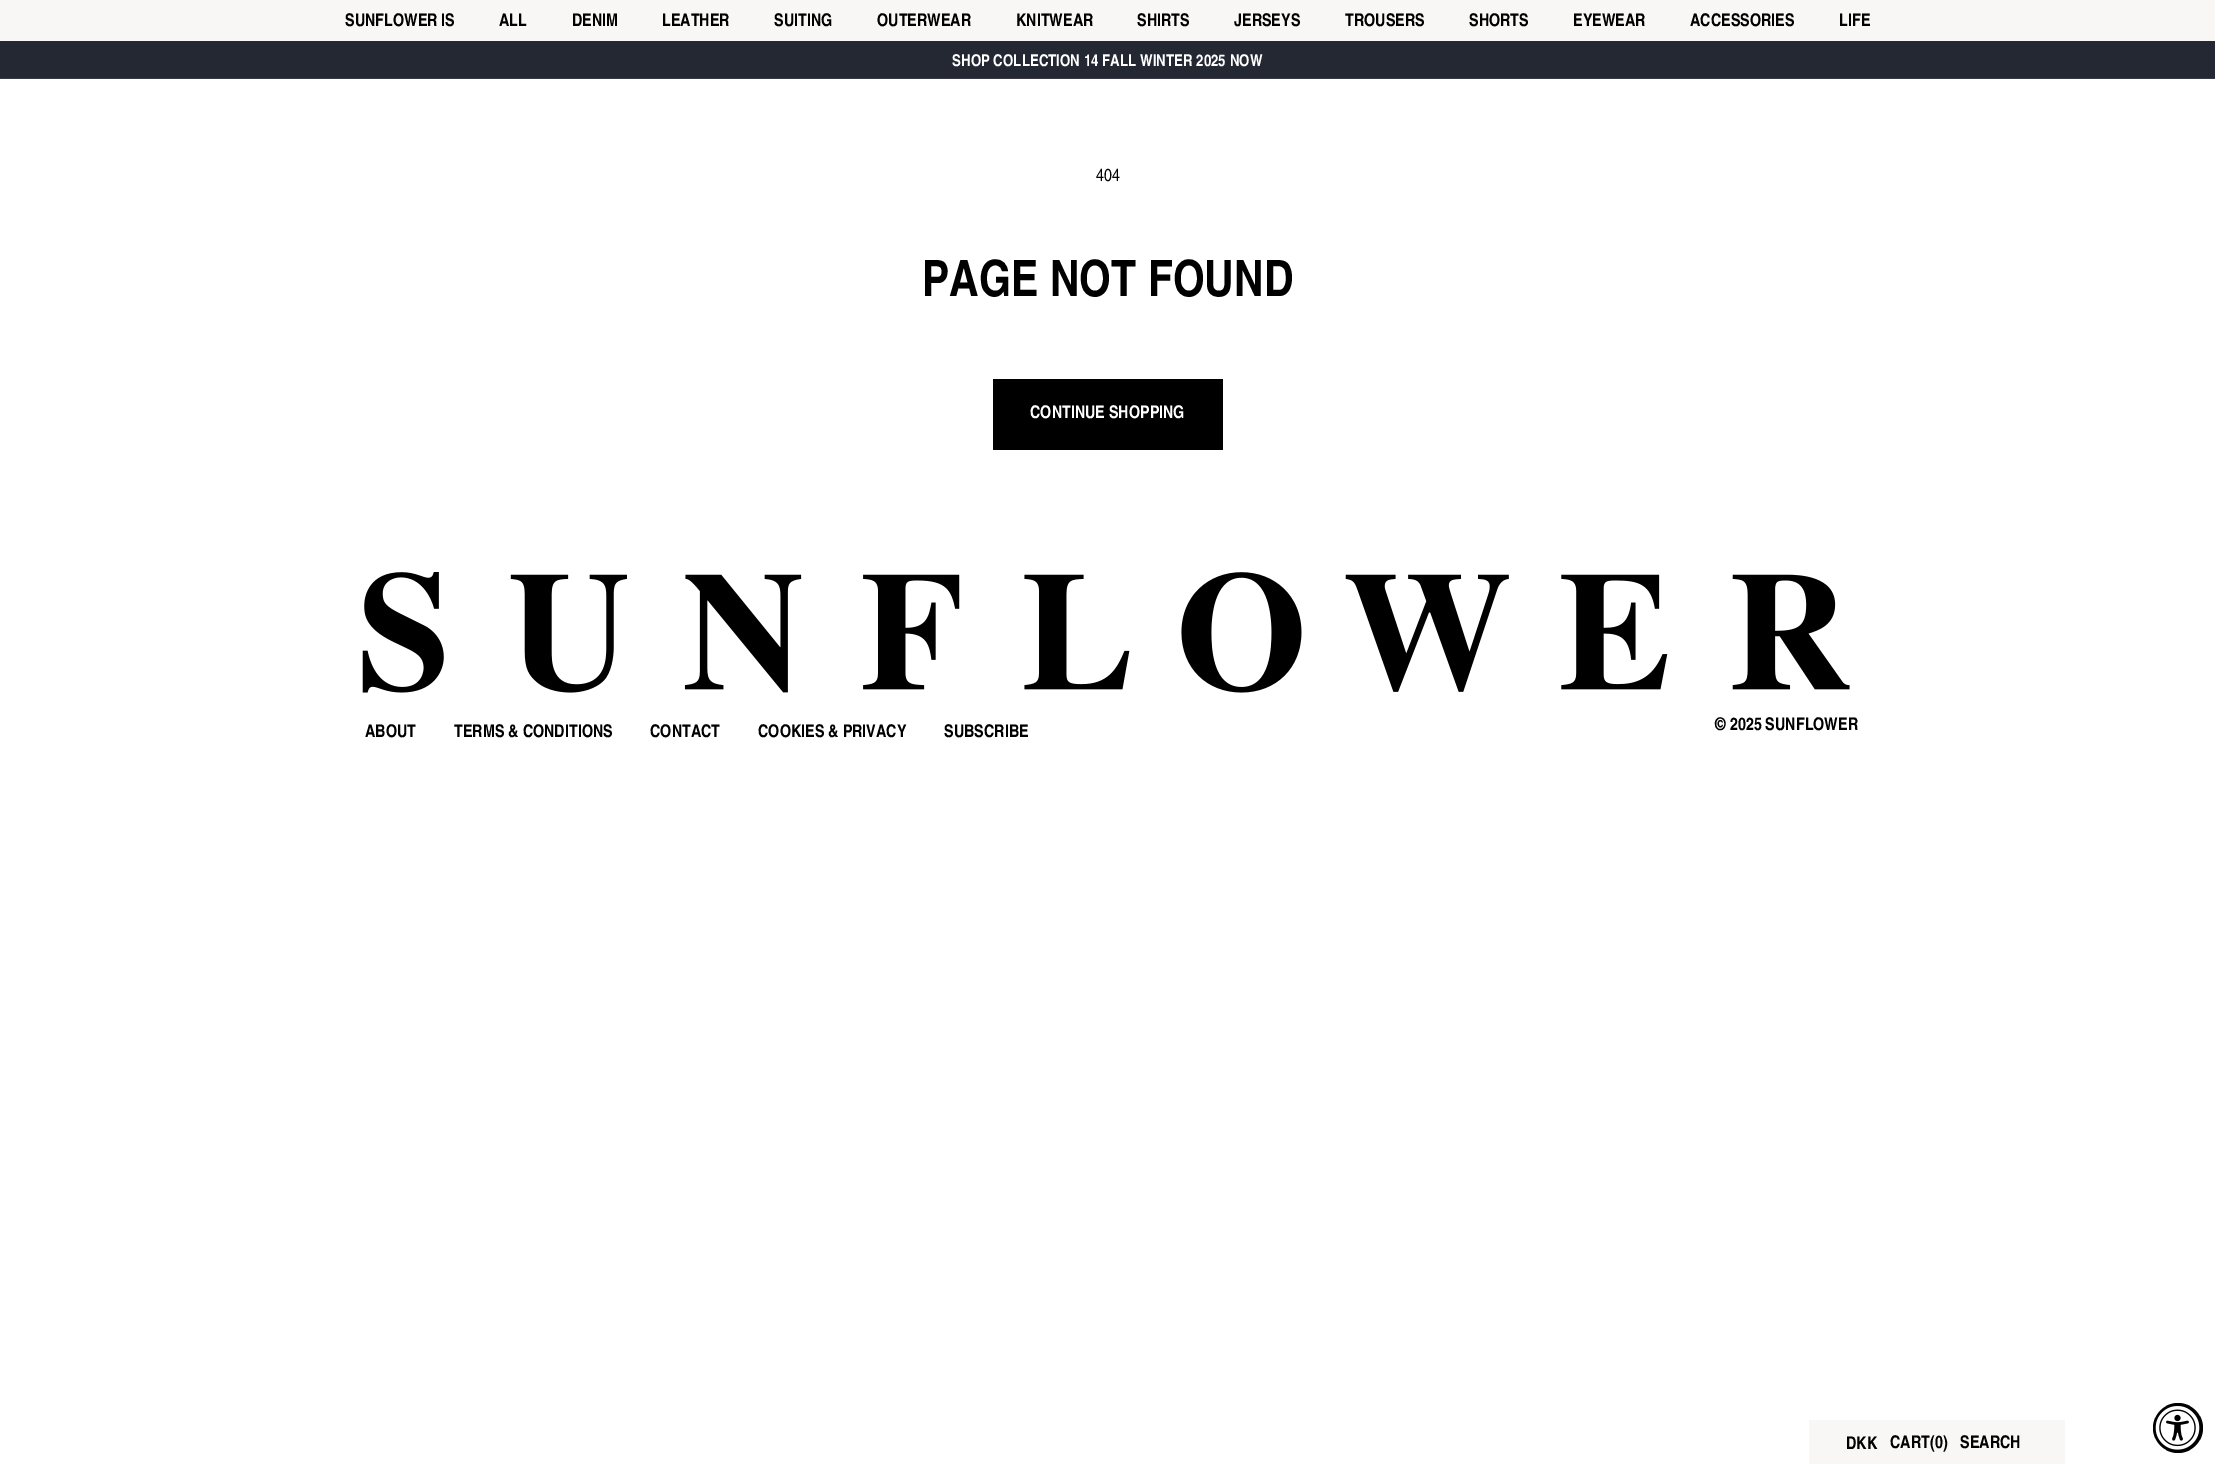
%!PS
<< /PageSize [2215 1464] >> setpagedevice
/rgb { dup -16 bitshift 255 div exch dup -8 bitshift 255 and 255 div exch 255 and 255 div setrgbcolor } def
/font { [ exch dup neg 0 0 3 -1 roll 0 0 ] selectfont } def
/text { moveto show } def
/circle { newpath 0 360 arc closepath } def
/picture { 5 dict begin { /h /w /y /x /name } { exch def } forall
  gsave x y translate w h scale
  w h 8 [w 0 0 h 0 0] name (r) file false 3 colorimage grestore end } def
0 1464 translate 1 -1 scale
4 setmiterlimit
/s1 { /Helvetica-Bold 17.5 font 16#000000 rgb } def
/s2 { /Helvetica-Bold 16.25 font 16#FFFFFF rgb } def
/s3 { /Helvetica-Regular 17.5 font 16#000000 rgb } def
/s4 { /Helvetica-Bold 50 font 16#000000 rgb } def
/s5 { /Helvetica-Bold 17.5 font 16#FFFFFF rgb } def
16#FFFFFF rgb
0 0 2215 1464 rectfill
16#F8F7F5 rgb
0 0 2215 41 rectfill
s1
(SUNFLOWER IS) 345 26 text
(ALL) 499 26 text
(DENIM) 572 26 text
(LEATHER) 662 26 text
(SUITING) 774 26 text
(OUTERWEAR) 877 26 text
(KNITWEAR) 1016 26 text
(SHIRTS) 1137 26 text
(JERSEYS) 1234 26 text
(TROUSERS) 1345 26 text
(SHORTS) 1469 26 text
(EYEWEAR) 1573 26 text
(ACCESSORIES) 1690 26 text
(LIFE) 1839 26 text
16#242833 rgb
0 41 2215 37 rectfill
16#363943 rgb
0 78 2215 1 rectfill
s2
(SHOP COLLECTION 14 FALL WINTER 2025 NOW) 952 66 text
s3
(404) 1096 181 text
s4
(PAGE NOT FOUND) 922 296 text
993 379 230 71 rectfill
s5
(CONTINUE SHOPPING) 1030 418 text
(pic1.raw) 362 572 1488 121 picture
s1
(ABOUT) 365 737 text
(TERMS & CONDITIONS) 454 737 text
(CONTACT) 650 737 text
(COOKIES & PRIVACY) 758 737 text
(SUBSCRIBE) 944 737 text
(© 2025 SUNFLOWER) 1715 730 text
16#F8F7F5 rgb
1809 1420 256 44 rectfill
s1
(DKK) 1846 1449 text
(CART\(0\)) 1890 1448 text
(SEARCH) 1960 1448 text
2178 1428 25 circle fill
(pic2.raw) 2155 1406 45 44 picture
showpage
